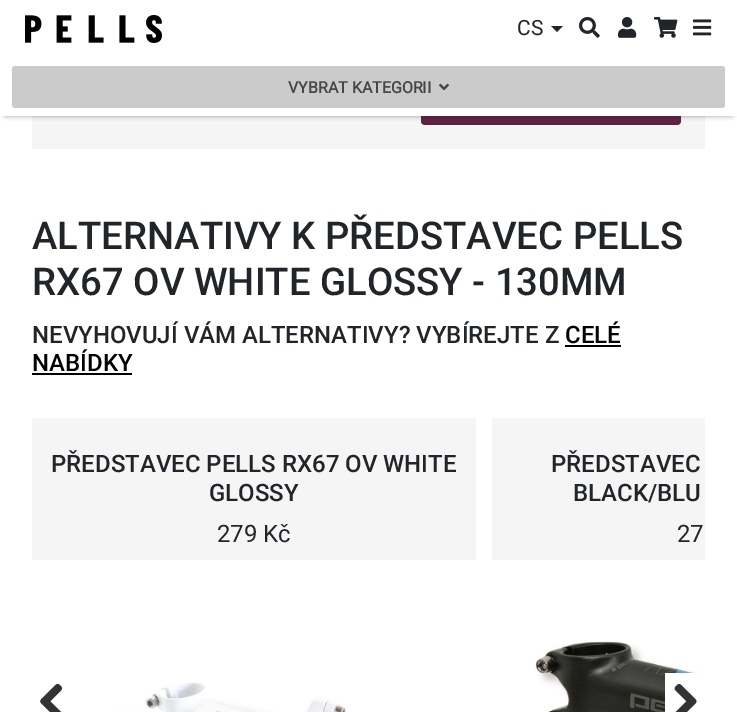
%!PS
<< /PageSize [737 712] /PageUsesTransparency true >> setpagedevice
/rgb { dup -16 bitshift 255 div exch dup -8 bitshift 255 and 255 div exch 255 and 255 div setrgbcolor } def
/font { [ exch dup neg 0 0 3 -1 roll 0 0 ] selectfont } def
/text { moveto show } def
/alpha { dup .setfillconstantalpha .setstrokeconstantalpha } def
/roundrect { 5 dict begin { /r /h /w /y /x } { exch def } forall
  x r add y moveto x w add y 2 copy h add r arct x w add y h add x 1 index r arct
  x y h add x y r arct x y 2 copy exch w add exch r arct closepath end } def
/shadow { 12 dict begin { /a /b /q /h /w /y /x } { exch def } forall gsave /was 0 def
  9 -2 -9 { dup b mul 4 div /e exch def 1 sub .425 mul 2.718 exch exp 1 add a .99 .min exch div /now exch def
    1 1 now sub 1 was sub div sub alpha /was now def
    w h .min e 2 mul add 0 gt { x e sub y e sub w e 2 mul add h e 2 mul add
      q e add b .6 mul add w h .min 2 div e add .min 0 .max roundrect fill } if } for grestore end } def
/picture { 5 dict begin { /h /w /y /x /name } { exch def } forall
  gsave x y translate w h scale
  w h 8 [w 0 0 h 0 0] name (r) file false 3 colorimage grestore end } def
0 .pushpdf14devicefilter
0 712 translate 1 -1 scale
4 setmiterlimit
/s1 { /Roboto-Regular 21 font 16#212529 rgb } def
/s2 { /Roboto-Bold 16 font 16#474747 rgb } def
/s3 { /Roboto-Medium 38.25 font 16#212529 rgb } def
/s4 { /Roboto-Medium 24 font 16#212529 rgb } def
/s5 { /Roboto-Medium 24 font 16#000000 rgb } def
/s6 { /Roboto-Regular 24 font 16#212529 rgb } def
16#FFFFFF rgb
0 0 737 712 rectfill
16#F5F5F5 rgb
32 116 673 33 rectfill
16#612141 rgb
421 88 260 37 4 roundrect fill
16#212529 rgb
6 10 725 104 0 3 1 shadow
16#FFFFFF rgb
0 3 737 113 rectfill
(pic1.raw) 25 15 137 28 picture
s1
(CS) 517 35 text
551 26 moveto 563 26 lineto 557 32 lineto closepath fill
(pic2.raw) 579 17 21 21 picture
(pic3.raw) 618 17 19 21 picture
(pic4.raw) 654 17 24 21 picture
(pic5.raw) 693 19 19 17 picture
16#CBCBCB rgb
12 66 713 42 3 roundrect fill
s2
(VYBRAT KATEGORII) 288 93 text
(pic6.raw) 439 83 10 8 picture
s3
(ALTERNATIVY K PŘEDSTAVEC PELLS) 32 249 text
(RX67 OV WHITE GLOSSY - 130MM) 32 295 text
s4
(NEVYHOVUJÍ VÁM ALTERNATIVY? VYBÍREJTE Z) 32 343 text
s5
(CELÉ) 565 343 text
565 345 56 2 rectfill
(NABÍDKY) 32 371 text
32 373 100 2 rectfill
16#F5F5F5 rgb
32 418 444 142 rectfill
s4
(PŘEDSTAVEC PELLS RX67 OV WHITE) 51 472 text
(GLOSSY) 209 501 text
s6
(279 Kč) 217 542 text
(pic7.raw) 32 560 444 152 picture
16#F5F5F5 rgb
492 418 213 142 rectfill
s4
(PŘEDSTAVEC) 551 472 text
(BLACK/BLU) 573 501 text
s6
(27) 677 542 text
(pic8.raw) 492 560 213 152 picture
(pic9.raw) 40 683 23 29 picture
16#FFFFFF rgb
665 673 40 39 rectfill
(pic10.raw) 674 683 23 29 picture
.poppdf14devicefilter showpage
